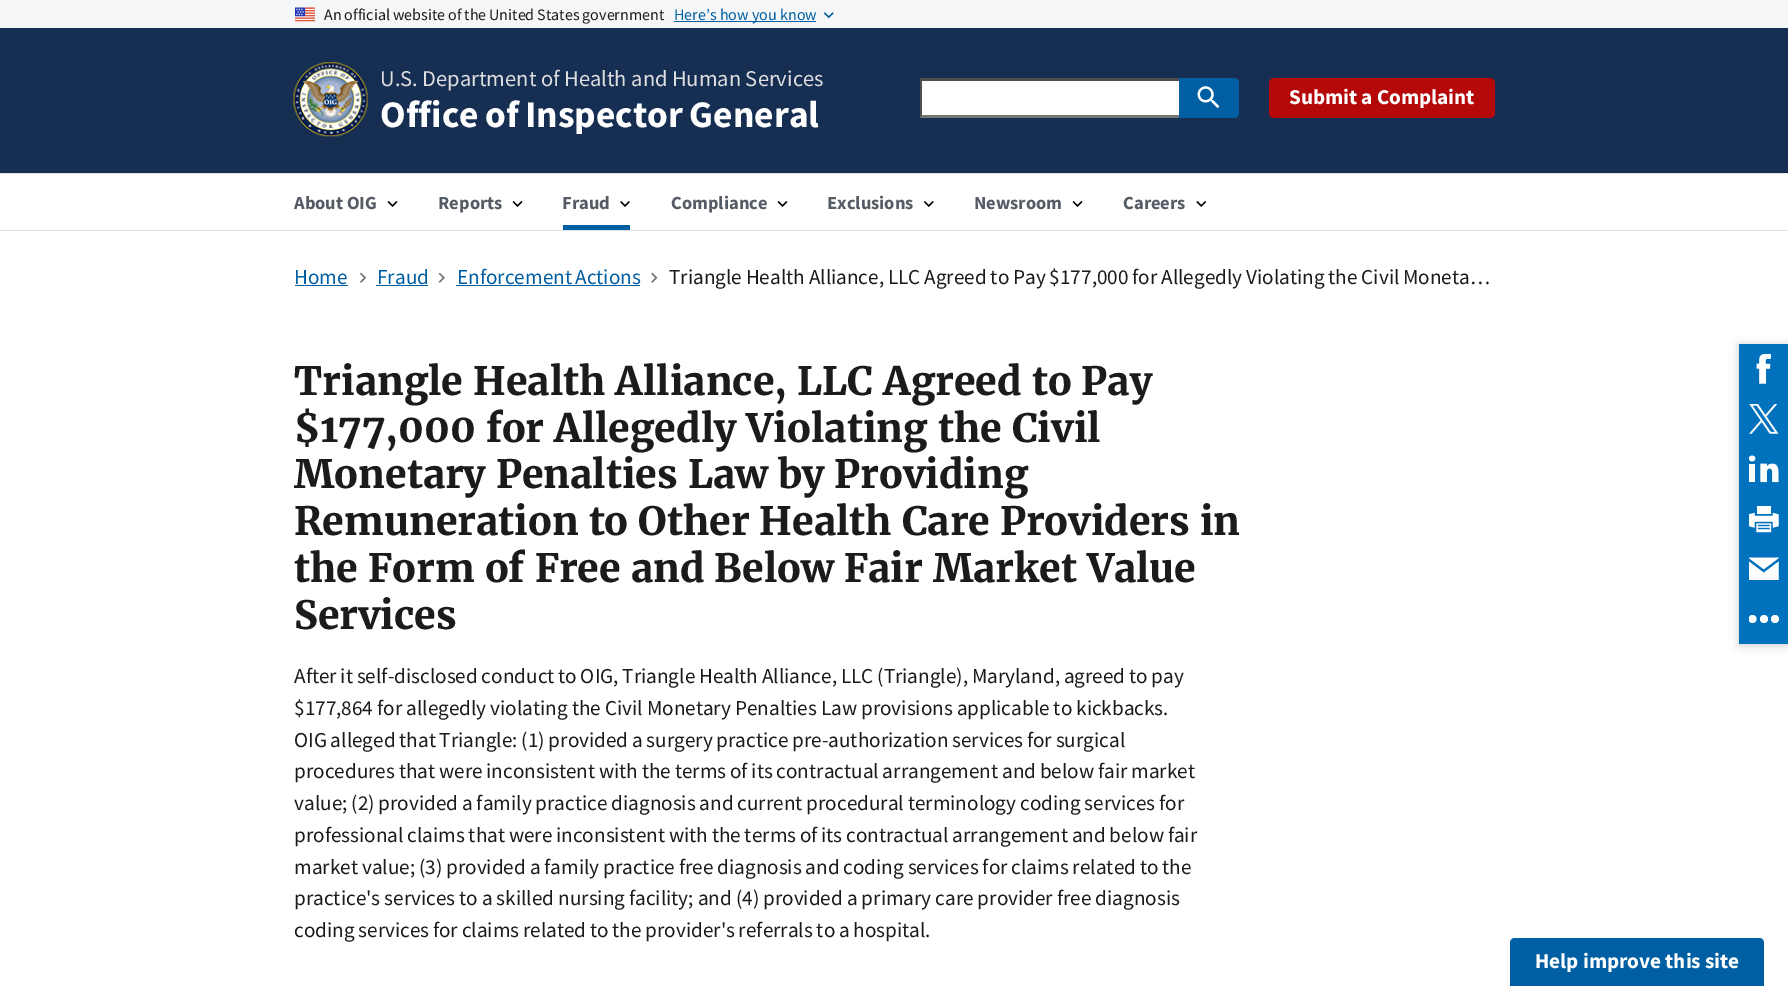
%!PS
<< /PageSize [1788 986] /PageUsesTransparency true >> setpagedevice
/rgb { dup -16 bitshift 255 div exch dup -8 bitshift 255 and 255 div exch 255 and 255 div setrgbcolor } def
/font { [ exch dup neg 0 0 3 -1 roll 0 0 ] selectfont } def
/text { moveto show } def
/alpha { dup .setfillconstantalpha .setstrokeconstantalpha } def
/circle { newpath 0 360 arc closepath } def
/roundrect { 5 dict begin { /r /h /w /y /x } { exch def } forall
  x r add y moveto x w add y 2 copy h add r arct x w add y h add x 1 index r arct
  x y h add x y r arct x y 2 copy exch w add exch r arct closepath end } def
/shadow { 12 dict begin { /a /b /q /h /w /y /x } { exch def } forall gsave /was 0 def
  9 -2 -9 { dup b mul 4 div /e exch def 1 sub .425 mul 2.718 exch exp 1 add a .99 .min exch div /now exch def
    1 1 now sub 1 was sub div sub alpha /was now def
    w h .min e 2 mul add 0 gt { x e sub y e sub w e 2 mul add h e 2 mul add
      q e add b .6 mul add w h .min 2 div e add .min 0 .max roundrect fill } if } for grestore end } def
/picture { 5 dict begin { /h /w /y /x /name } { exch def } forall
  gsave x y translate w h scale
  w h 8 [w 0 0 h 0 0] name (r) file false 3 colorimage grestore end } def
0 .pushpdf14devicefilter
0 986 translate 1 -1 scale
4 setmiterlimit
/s1 { /SourceSansPro-Regular 16 font 16#005EA2 rgb } def
/s2 { /SourceSansPro-Regular 22.5 font 16#DCDEE0 rgb } def
/s3 { /SourceSansPro-Bold 21.2 font 16#FFFFFF rgb } def
/s4 { /SourceSansPro-Bold 18.5 font 16#565C65 rgb } def
/s5 { /SourceSansPro-Regular 21.2 font 16#005EA2 rgb } def
/s6 { /Merriweather-Bold 39 font 16#1B1B1B rgb } def
16#FFFFFF rgb
0 0 1788 986 rectfill
16#F5F6F7 rgb
0 0 1788 28 rectfill
(pic1.raw) 295 7 20 15 picture
/SourceSansPro-Regular 16 font
16#1B1B1B rgb
324 20 moveto -0.25 0 32 (An official website of the United States government) widthshow
16#005EA2 rgb
674 21 142 1 rectfill
(Here’s how you know) 674 20 text
(pic2.raw) 823 12 11 7 picture
16#162E51 rgb
0 28 1788 145 rectfill
(pic3.raw) 293 62 75 75 picture
s2
(U.S. Department of Health and Human Services) 380 86 text
/SourceSansPro-Bold 37.5 font
16#FFFFFF rgb
380 127 moveto -1 0 32 (Office of Inspector General) widthshow
920 81 259 37 rectfill
16#4F4F4F rgb
920 78 259 3 rectfill
16#767676 rgb
1179 118 moveto 920 118 lineto 922 115 lineto 1179 115 lineto closepath fill
16#4F4F4F rgb
920 118 moveto 920 78 lineto 922 80 lineto 922 115 lineto closepath fill
16#005EA2 rgb
1179 78 moveto 1234 78 lineto 1237 78 1239 80 1239 83 curveto 1239 113 lineto 1239 116 1237 118 1234 118 curveto 1179 118 lineto closepath fill
(pic4.raw) 1197 86 23 22 picture
16#B50909 rgb
1269 78 226 40 5 roundrect fill
s3
(Submit a Complaint) 1289 104 text
16#DFE1E2 rgb
0 173 1788 1 rectfill
s4
(About OIG) 294 209 text
(pic5.raw) 387 201 11 6 picture
(Reports) 438 209 text
(pic5.raw) 512 201 11 6 picture
(Fraud) 562 209 text
(pic6.raw) 620 201 10 6 picture
16#005EA2 rgb
563 225 67 5 rectfill
s4
(Compliance) 671 209 text
(pic5.raw) 777 201 11 6 picture
(Exclusions) 827 209 text
(pic7.raw) 923 201 11 6 picture
(Newsroom) 974 209 text
(pic5.raw) 1072 201 11 6 picture
(Careers) 1123 209 text
(pic8.raw) 1196 201 11 6 picture
16#DFE1E2 rgb
0 230 1788 1 rectfill
s5
(Home) 294 284 text
295 285 53 1 rectfill
(pic9.raw) 360 272 7 11 picture
(Fraud) 377 284 text
376 285 52 1 rectfill
(pic10.raw) 438 272 7 11 picture
457 284 moveto -1 0 32 (Enforcement Actions) widthshow
456 285 184 1 rectfill
(pic11.raw) 651 272 7 11 picture
16#1B1B1B rgb
669 284 moveto -0.4 0 32 (Triangle Health Alliance, LLC Agreed to Pay $177,000 for Allegedly Violating the Civil Moneta…) widthshow
s6
(Triangle Health Alliance, LLC Agreed to Pay) 294 395 text
($177,000 for Allegedly Violating the Civil) 294 442 text
(Monetary Penalties Law by Providing) 294 488 text
(Remuneration to Other Health Care Providers in) 294 535 text
(the Form of Free and Below Fair Market Value) 294 582 text
(Services) 294 629 text
/SourceSansPro-Regular 21.2 font
294 683 moveto -0.5 0 32 (After it self-disclosed conduct to OIG, Triangle Health Alliance, LLC \(Triangle\), Maryland, agreed to pay) widthshow
294 715 moveto -0.25 0 32 ($177,864 for allegedly violating the Civil Monetary Penalties Law provisions applicable to kickbacks.) widthshow
294 747 moveto -0.5 0 32 (OIG alleged that Triangle: \(1\) provided a surgery practice pre-authorization services for surgical) widthshow
294 778 moveto -0.5 0 32 (procedures that were inconsistent with the terms of its contractual arrangement and below fair market) widthshow
294 810 moveto -0.4 0 32 (value; \(2\) provided a family practice diagnosis and current procedural terminology coding services for) widthshow
294 842 moveto -0.5 0 32 (professional claims that were inconsistent with the terms of its contractual arrangement and below fair) widthshow
294 874 moveto -0.4 0 32 (market value; \(3\) provided a family practice free diagnosis and coding services for claims related to the) widthshow
294 905 moveto -0.25 0 32 (practice's services to a skilled nursing facility; and \(4\) provided a primary care provider free diagnosis) widthshow
294 937 moveto -0.5 0 32 (coding services for claims related to the provider's referrals to a hospital.) widthshow
16#000000 rgb
1739 345 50 300 0 4.5 0.2 shadow
16#0071BC rgb
1739 344 49 300 rectfill
(pic12.raw) 1756 354 15 30 picture
(pic13.raw) 1749 404 30 30 picture
(pic14.raw) 1749 455 30 28 picture
(pic15.raw) 1749 506 30 27 picture
(pic16.raw) 1749 557 30 23 picture
gsave
1749 604 30 30 rectclip
16#FFFFFF rgb
1752.5 619 4 circle fill
grestore
16#FFFFFF rgb
1764 619 4 circle fill
1775 619 4 circle fill
16#005EA2 rgb
1515 938 moveto 1759 938 lineto 1762 938 1764 940 1764 943 curveto 1764 986 lineto 1510 986 lineto 1510 943 lineto 1510 940 1512 938 1515 938 curveto closepath fill
s3
(Help improve this site) 1535 968 text
.poppdf14devicefilter showpage
